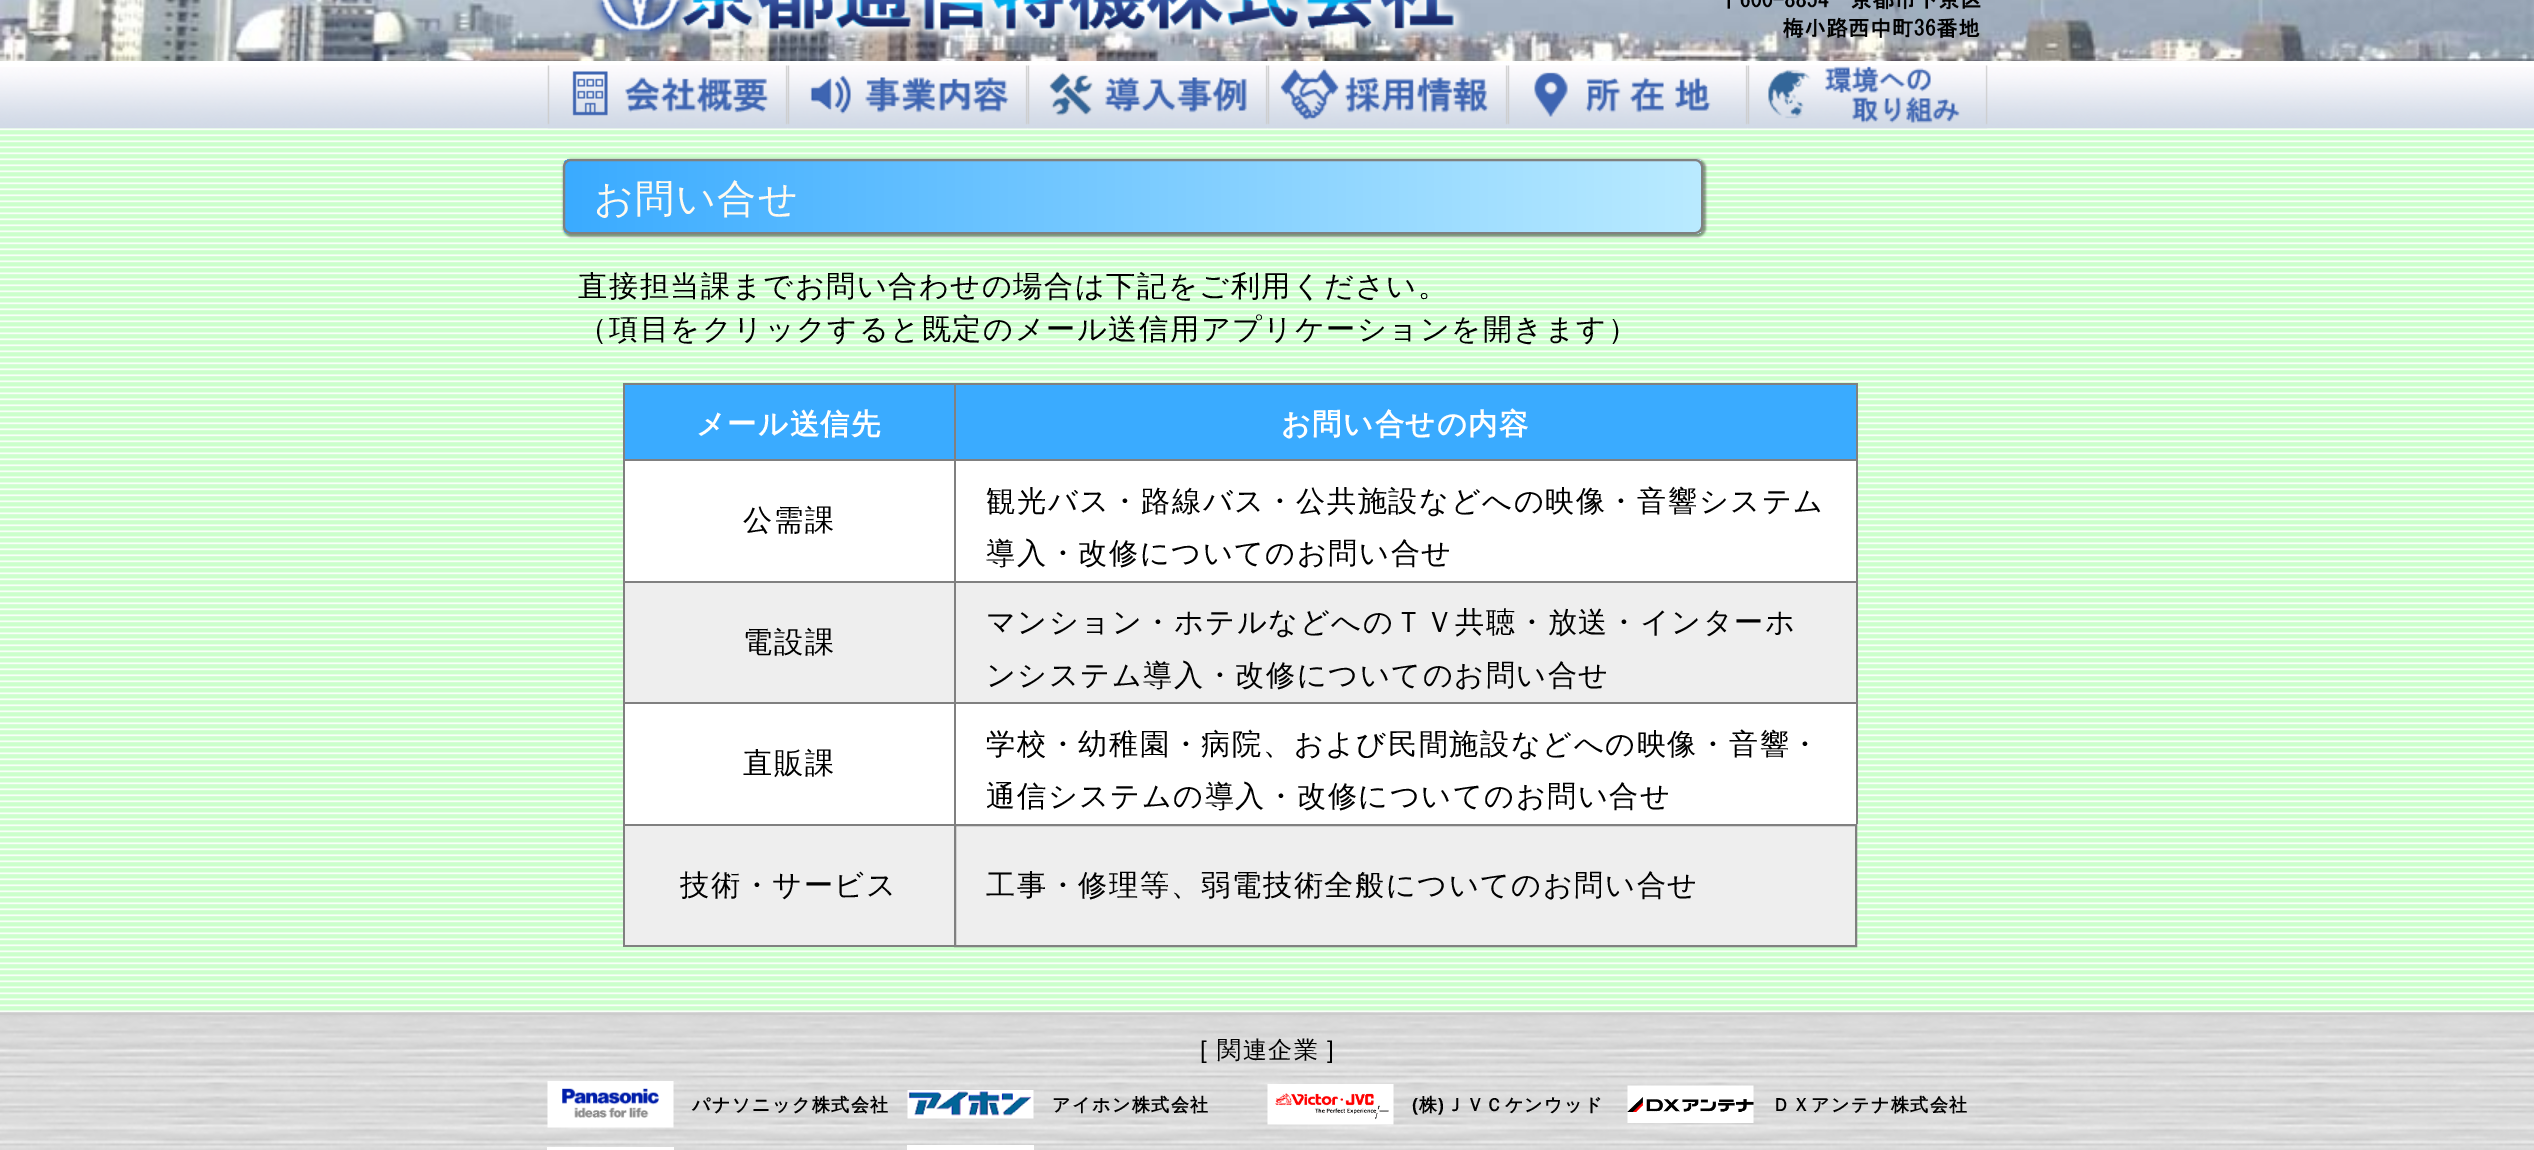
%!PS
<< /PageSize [2534 1150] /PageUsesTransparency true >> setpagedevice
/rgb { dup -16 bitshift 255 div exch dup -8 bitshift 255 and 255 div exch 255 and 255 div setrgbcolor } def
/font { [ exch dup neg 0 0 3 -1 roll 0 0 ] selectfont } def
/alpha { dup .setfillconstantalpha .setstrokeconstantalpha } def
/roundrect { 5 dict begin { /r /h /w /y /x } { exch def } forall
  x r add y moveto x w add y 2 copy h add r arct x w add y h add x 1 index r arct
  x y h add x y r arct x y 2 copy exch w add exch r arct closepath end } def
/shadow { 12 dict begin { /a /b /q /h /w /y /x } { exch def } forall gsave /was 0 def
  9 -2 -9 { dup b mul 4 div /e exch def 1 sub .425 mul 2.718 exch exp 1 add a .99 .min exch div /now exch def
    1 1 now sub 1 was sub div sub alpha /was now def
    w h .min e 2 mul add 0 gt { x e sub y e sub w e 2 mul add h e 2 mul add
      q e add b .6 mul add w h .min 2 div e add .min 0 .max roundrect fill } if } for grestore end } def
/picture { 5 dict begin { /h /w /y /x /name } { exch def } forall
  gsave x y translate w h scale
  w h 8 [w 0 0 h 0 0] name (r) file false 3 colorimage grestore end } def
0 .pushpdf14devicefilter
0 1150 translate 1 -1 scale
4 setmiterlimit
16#FFFFFF rgb
0 0 2534 1150 rectfill
(pic1.raw) 0 0 2534 61 picture
(pic2.raw) 592 0 873 42 picture
(pic3.raw) 1727 0 254 39 picture
(pic4.raw) 0 67 2534 62 picture
(pic11.raw) 0 128 2534 884 picture
(pic5.raw) 547 65 241 64 picture
(pic6.raw) 787 65 241 64 picture
(pic7.raw) 1027 65 241 64 picture
(pic8.raw) 1267 65 241 64 picture
(pic9.raw) 1507 65 241 64 picture
(pic10.raw) 1747 65 241 64 picture
16#000000 rgb
563 159 1143 78 9 1 0.4 shadow
gsave
563 159 1140 75 8 roundrect clip newpath
gsave 564 159 moveto 1701 159 lineto 1701 234 lineto 564 234 lineto closepath clip newpath
<< /ShadingType 2 /ColorSpace /DeviceRGB /Coords [564 197 1701 196] /Extend [true true] /Function << /FunctionType 2 /Domain [0 1] /C0 [0.227 0.671 1] /C1 [0.729 0.922 1] /N 1 >> >> shfill grestore
grestore
16#808080 rgb
2 setlinewidth
564 160 1138 73 7 roundrect stroke
/WenQuanYiZenHei-Medium 39 font
16#FFFAF0 rgb
594 212 moveto 1.5 0 (お問い合せ) ashow
/WenQuanYiZenHei-Medium 29.25 font
16#000000 rgb
578 296 moveto 1.5 0 (直接担当課までお問い合わせの場合は下記をご利用ください。) ashow
578 339 moveto 1.5 0 (（項目をクリックすると既定のメール送信用アプリケーションを開きます）) ashow
16#3AABFF rgb
625 385 329 74 rectfill
16#808080 rgb
623 383 1234 2 rectfill
623 383 2 76 rectfill
/WenQuanYiZenHei-Bold 29.25 font
16#FFFFFF rgb
696 434 moveto 1.5 0 (メール送信先) ashow
16#3AABFF rgb
956 385 900 74 rectfill
16#808080 rgb
1856 383 2 76 rectfill
954 383 2 76 rectfill
16#FFFFFF rgb
1281 434 moveto 1.5 0 (お問い合せの内容) ashow
625 461 329 120 rectfill
16#808080 rgb
623 459 1234 2 rectfill
623 459 2 122 rectfill
/WenQuanYiZenHei-Medium 29.25 font
16#000000 rgb
743 530 moveto 1.5 0 (公需課) ashow
16#FFFFFF rgb
956 461 900 120 rectfill
16#808080 rgb
1856 459 2 122 rectfill
954 459 2 122 rectfill
16#000000 rgb
986 511 moveto 1.5 0 (観光バス・路線バス・公共施設などへの映像・音響システム) ashow
986 563 moveto 1.5 0 (導入・改修についてのお問い合せ) ashow
16#EEEEEE rgb
625 583 329 119 rectfill
16#808080 rgb
623 581 1234 2 rectfill
623 581 2 121 rectfill
16#000000 rgb
743 652 moveto 1.5 0 (電設課) ashow
16#EEEEEE rgb
956 583 900 119 rectfill
16#808080 rgb
1856 581 2 121 rectfill
954 581 2 121 rectfill
16#000000 rgb
986 632 moveto 1.5 0 (マンション・ホテルなどへのＴＶ共聴・放送・インターホ) ashow
986 685 moveto 1.5 0 (ンシステム導入・改修についてのお問い合せ) ashow
16#FFFFFF rgb
625 704 329 120 rectfill
16#808080 rgb
623 702 1234 2 rectfill
623 702 2 122 rectfill
16#000000 rgb
743 773 moveto 1.5 0 (直販課) ashow
16#FFFFFF rgb
956 704 900 120 rectfill
16#808080 rgb
1856 702 2 122 rectfill
954 702 2 122 rectfill
16#000000 rgb
986 754 moveto 1.5 0 (学校・幼稚園・病院、および民間施設などへの映像・音響・) ashow
986 806 moveto 1.5 0 (通信システムの導入・改修についてのお問い合せ) ashow
16#EEEEEE rgb
625 826 329 119 rectfill
16#808080 rgb
623 824 331 2 rectfill
623 945 331 2 rectfill
623 824 2 123 rectfill
16#000000 rgb
680 895 moveto 1.5 0 (技術・サービス) ashow
16#EEEEEE rgb
955 825 moveto 1856 825 lineto 1856 946 lineto 955 946 lineto closepath gsave fill grestore
16#808080 rgb
stroke
16#000000 rgb
986 895 moveto 1.5 0 (工事・修理等、弱電技術全般についてのお問い合せ) ashow
(pic12.raw) 0 1012 2534 138 picture
16#CCCCCC rgb
0 1013 2534 2 rectfill
/LiberationSans-Regular 24 font
16#000000 rgb
1200 1058 moveto 1.5 0 ([) ashow
/WenQuanYiZenHei-Medium 24 font
1217 1058 moveto 1.5 0 (関連企業) ashow
/LiberationSans-Regular 24 font
1327 1058 moveto 1.5 0 (]) ashow
(pic13.raw) 547 1081 127 47 picture
/WenQuanYiZenHei-Bold 18 font
692 1111 moveto 1.5 0 (パナソニック株式会社) ashow
(pic14.raw) 907 1090 127 29 picture
1052 1111 moveto 1.5 0 (アイホン株式会社) ashow
(pic15.raw) 1267 1084 127 41 picture
/LiberationSans-Bold 18 font
1412 1111 moveto 1.5 0 (\() ashow
/WenQuanYiZenHei-Bold 18 font
1419 1111 moveto 1.5 0 (株) ashow
/LiberationSans-Bold 18 font
1438 1111 moveto 1.5 0 (\)) ashow
/WenQuanYiZenHei-Bold 18 font
1446 1111 moveto 1.5 0 (ＪＶＣケンウッド) ashow
(pic16.raw) 1627 1085 127 38 picture
1772 1111 moveto 1.5 0 (ＤＸアンテナ株式会社) ashow
16#FFFFFF rgb
547 1147 127 3 rectfill
907 1145 127 5 rectfill
.poppdf14devicefilter showpage
